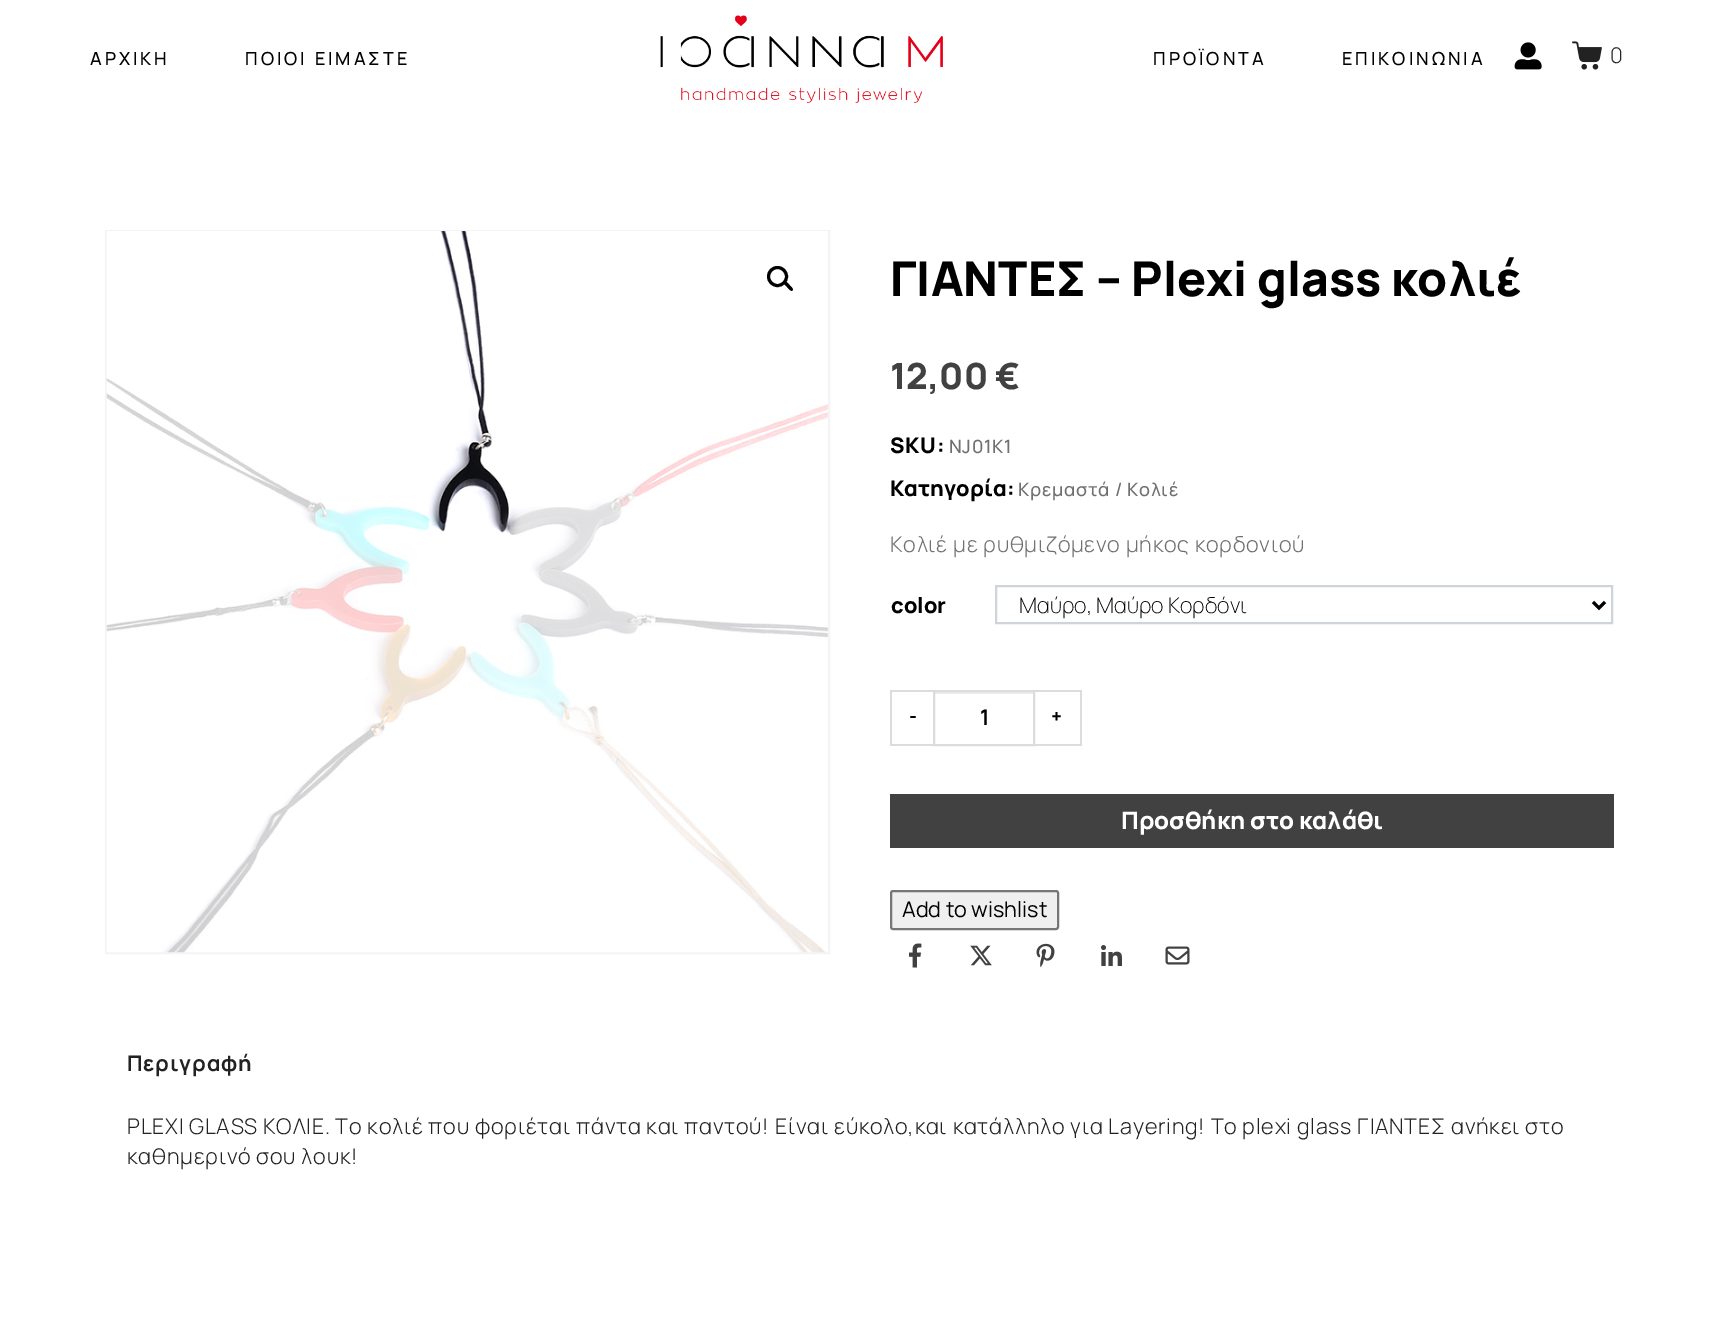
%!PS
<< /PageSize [1718 1340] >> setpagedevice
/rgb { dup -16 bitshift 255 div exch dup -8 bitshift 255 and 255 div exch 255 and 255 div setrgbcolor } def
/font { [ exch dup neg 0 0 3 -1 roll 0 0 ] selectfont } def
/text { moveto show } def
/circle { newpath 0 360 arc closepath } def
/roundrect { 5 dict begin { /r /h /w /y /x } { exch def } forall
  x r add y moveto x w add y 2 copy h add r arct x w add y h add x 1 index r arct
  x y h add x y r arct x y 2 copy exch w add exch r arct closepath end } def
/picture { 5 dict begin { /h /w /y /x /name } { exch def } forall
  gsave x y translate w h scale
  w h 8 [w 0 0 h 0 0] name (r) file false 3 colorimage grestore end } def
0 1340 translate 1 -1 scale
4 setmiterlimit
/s1 { /Manrope-ExtraBold 48 font 16#000000 rgb } def
/s2 { /Manrope-ExtraBold 36 font 16#414141 rgb } def
/s3 { /Manrope-ExtraBold 21.6 font 16#000000 rgb } def
/s4 { /Manrope-ExtraLight 21.6 font 16#000000 rgb } def
/s5 { /Manrope-ExtraBold 19 font 16#000000 rgb } def
/s6 { /Manrope-Bold 21.6 font 16#000000 rgb } def
/s7 { /Manrope-ExtraBold 24 font 16#FFFFFF rgb } def
/s8 { /Manrope-Regular 21.6 font 16#000000 rgb } def
16#FFFFFF rgb
0 0 1718 1340 rectfill
/Manrope-Medium 18 font
16#000000 rgb
90 65 moveto 3 0 (ΑΡΧΙΚΗ) ashow
245 65 moveto 3 0 (ΠΟΙΟΙ ΕΙΜΑΣΤΕ) ashow
(pic1.raw) 660 15 283 88 picture
1153 65 moveto 3 0 (ΠΡΟΪΟΝΤΑ) ashow
1342 65 moveto 3 0 (ΕΠΙΚΟΙΝΩΝΙΑ) ashow
(pic2.raw) 1514 42 28 28 picture
(pic3.raw) 1572 41 30 29 picture
/Manrope-Light 21.6 font
16#212529 rgb
1610 63 moveto 0.75 0 (0) ashow
16#F4F4F4 rgb
2 setlinewidth
106 231 723 722 rectstroke
(pic4.raw) 106 231 722 722 picture
16#000000 rgb
3 setlinewidth
777.5 276.5 9 circle stroke
784 282 moveto 785.5 280 788.5 284 789.5 285 curveto 790 286 794 288.5 792.5 290.5 curveto 791 292 788 288 787 287 curveto 786.5 286 782.5 283.5 784 282 curveto closepath fill
s1
(ΓΙΑΝΤΕΣ – Plexi glass κολιέ) 890 296 text
s2
(12,00 €) 890 389 text
/Manrope-ExtraBold 21.6 font
16#000000 rgb
890 453 moveto 0.75 0 (SKU:) ashow
/Manrope-Medium 18.25 font
16#707070 rgb
949 453 moveto 0.75 0 (NJ01K1) ashow
s3
(Κατηγορία:) 890 496 text
/Manrope-Medium 18.25 font
16#707070 rgb
1018 496 moveto 0.75 0 (Κρεμαστά / Κολιέ) ashow
/Manrope-Light 21.6 font
890 552 moveto 0.75 0 (Κολιέ με ρυθμιζόμενο μήκος κορδονιού) ashow
s3
(color) 891 613 text
16#CED4DA rgb
2 setlinewidth
996 586 616 37 rectstroke
16#000000 rgb
3 setlinewidth
1593 602 moveto 1599 608 lineto 1605 602 lineto stroke
s4
(Μαύρο, Μαύρο Κορδόνι) 1019 613 text
16#ECECEC rgb
935 692 99 2 rectfill
16#DCDCDC rgb
2 setlinewidth
934 691 100 54 rectstroke
890 690 45 2 rectfill
890 744 45 2 rectfill
890 690 2 56 rectfill
s5
(-) 909 723 text
s6
(1) 980 725 text
16#DCDCDC rgb
1034 690 48 2 rectfill
1080 690 2 56 rectfill
1034 744 48 2 rectfill
s5
(+) 1051 723 text
16#414141 rgb
890 794 724 54 rectfill
s7
(Προσθήκη στο καλάθι) 1121 829 text
16#EFEFEF rgb
891 891 167 38 2 roundrect gsave fill grestore
16#767676 rgb
stroke
s8
(Add to wishlist) 902 917 text
(pic5.raw) 909 943 13 25 picture
(pic6.raw) 970 945 22 21 picture
(pic7.raw) 1036 943 19 25 picture
(pic8.raw) 1101 945 21 21 picture
(pic9.raw) 1165 946 25 19 picture
/Manrope-Bold 21.6 font
16#222222 rgb
127 1071 moveto 0.75 0 (Περιγραφή) ashow
/Manrope-Light 21.6 font
127 1134 moveto 0.75 0 (PLEXI GLASS ΚΟΛΙΕ. Το κολιέ που φοριέται πάντα και παντού! Είναι εύκολο,και κατάλληλο για Layering! Το plexi glass ΓΙΑΝΤΕΣ ανήκει στο) ashow
127 1164 moveto 0.75 0 (καθημερινό σου λουκ!) ashow
showpage
